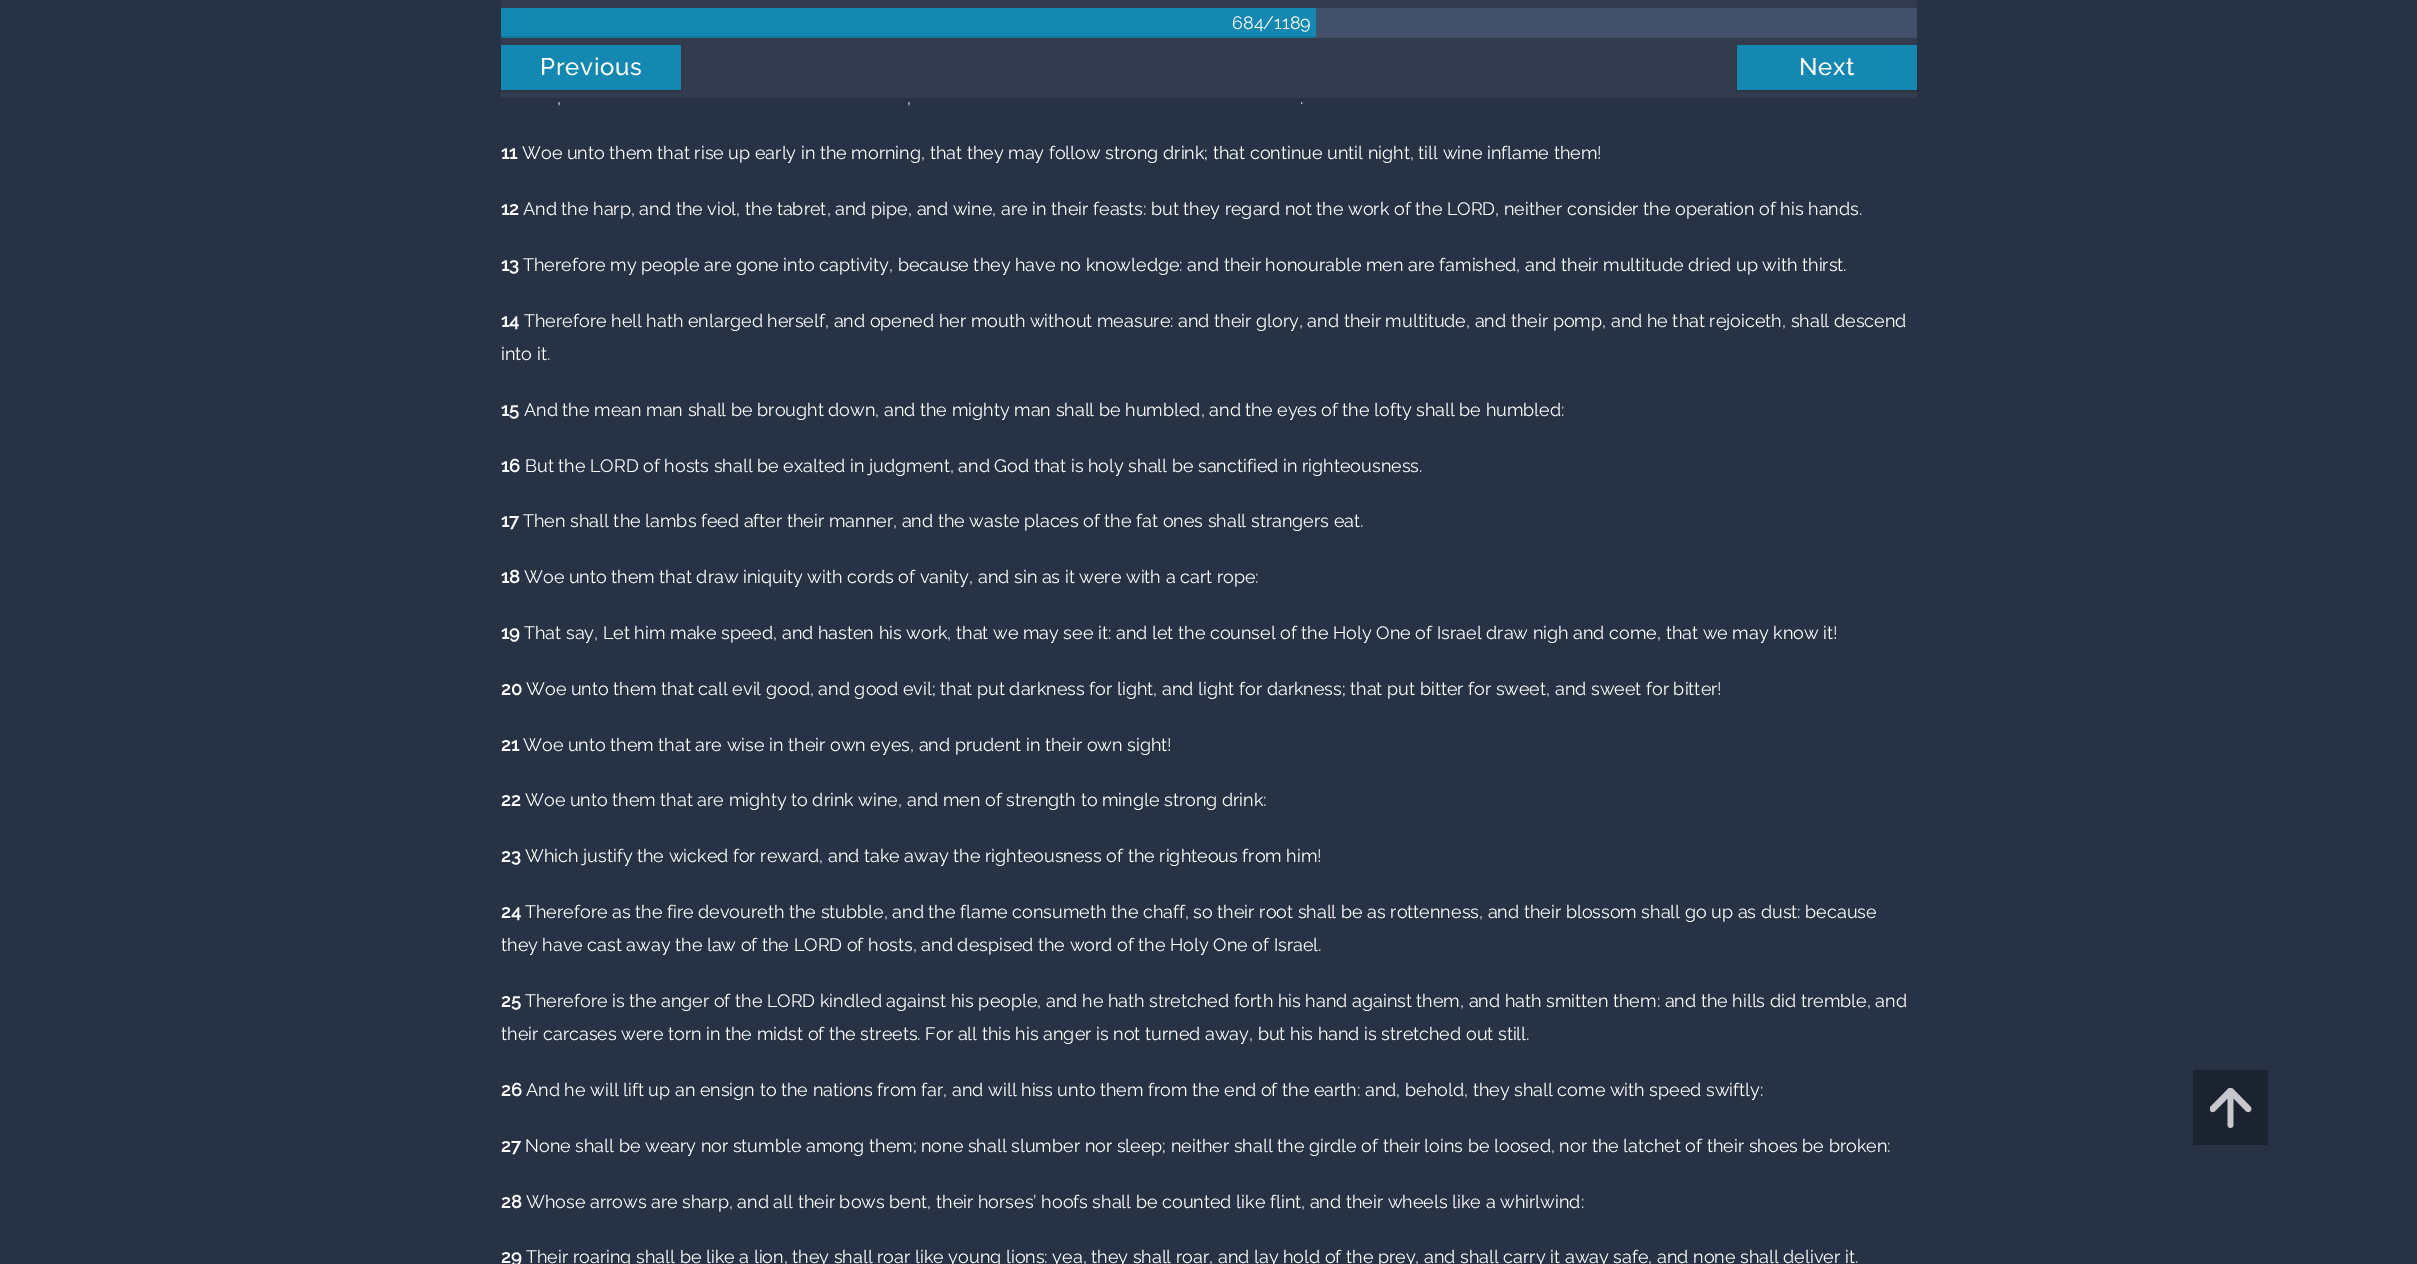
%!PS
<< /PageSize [2417 1264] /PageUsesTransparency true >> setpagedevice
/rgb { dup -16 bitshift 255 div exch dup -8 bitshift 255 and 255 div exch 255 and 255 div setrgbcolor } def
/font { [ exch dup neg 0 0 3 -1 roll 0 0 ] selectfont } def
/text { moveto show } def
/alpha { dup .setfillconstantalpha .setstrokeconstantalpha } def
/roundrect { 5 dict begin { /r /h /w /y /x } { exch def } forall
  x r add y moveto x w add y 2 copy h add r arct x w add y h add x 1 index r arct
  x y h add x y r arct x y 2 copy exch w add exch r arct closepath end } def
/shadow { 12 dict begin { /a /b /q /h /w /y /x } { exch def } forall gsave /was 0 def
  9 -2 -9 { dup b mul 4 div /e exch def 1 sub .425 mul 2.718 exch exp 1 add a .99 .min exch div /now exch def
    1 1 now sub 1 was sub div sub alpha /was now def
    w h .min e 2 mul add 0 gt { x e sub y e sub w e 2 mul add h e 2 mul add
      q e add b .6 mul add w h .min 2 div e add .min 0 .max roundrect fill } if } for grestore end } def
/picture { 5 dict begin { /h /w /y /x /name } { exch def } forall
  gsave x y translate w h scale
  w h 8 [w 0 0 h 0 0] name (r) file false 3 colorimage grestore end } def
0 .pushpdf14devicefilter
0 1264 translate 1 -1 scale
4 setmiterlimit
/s1 { /Raleway-Regular 18 font 16#FFFFFF rgb } def
/s2 { /Raleway-Bold 18 font 16#FFFFFF rgb } def
16#273245 rgb
0 0 2417 1264 rectfill
16#323C4E rgb
501 0 1416 98 rectfill
16#435069 rgb
1316 8 601 30 rectfill
16#1588B1 rgb
501 8 815 28 rectfill
16#127496 rgb
501 36 815 2 rectfill
s1
(684/1189) 1232 29 text
16#000000 rgb
501 47 180 45 0 1.5 0.15 shadow
16#1588B1 rgb
501 45 180 45 rectfill
/Raleway-Medium 24 font
16#FFFFFF rgb
540 75 moveto 0.75 0 (Previous) ashow
16#000000 rgb
1737 47 180 45 0 1.5 0.15 shadow
16#1588B1 rgb
1737 45 180 45 rectfill
16#FFFFFF rgb
1799 75 moveto 0.75 0 (Next) ashow
s1
(,) 557 104 text
(,) 907 104 text
(.) 1300 104 text
s2
(11) 501 159 text
s1
(Woe unto them that rise up early in the morning, that they may follow strong drink; that continue until night, till wine inflame them!) 522 159 text
s2
(12) 501 215 text
s1
(And the harp, and the viol, the tabret, and pipe, and wine, are in their feasts: but they regard not the work of the LORD, neither consider the operation of his hands.) 523 215 text
s2
(13) 501 271 text
s1
(Therefore my people are gone into captivity, because they have no knowledge: and their honourable men are famished, and their multitude dried up with thirst.) 523 271 text
s2
(14) 501 327 text
s1
(Therefore hell hath enlarged herself, and opened her mouth without measure: and their glory, and their multitude, and their pomp, and he that rejoiceth, shall descend) 524 327 text
(into it.) 501 360 text
s2
(15) 501 416 text
s1
(And the mean man shall be brought down, and the mighty man shall be humbled, and the eyes of the lofty shall be humbled:) 524 416 text
s2
(16) 501 472 text
s1
(But the LORD of hosts shall be exalted in judgment, and God that is holy shall be sanctified in righteousness.) 525 472 text
s2
(17) 501 527 text
s1
(Then shall the lambs feed after their manner, and the waste places of the fat ones shall strangers eat.) 523 527 text
s2
(18) 501 583 text
s1
(Woe unto them that draw iniquity with cords of vanity, and sin as it were with a cart rope:) 524 583 text
s2
(19) 501 639 text
s1
(That say, Let him make speed, and hasten his work, that we may see it: and let the counsel of the Holy One of Israel draw nigh and come, that we may know it!) 524 639 text
s2
(20) 501 695 text
s1
(Woe unto them that call evil good, and good evil; that put darkness for light, and light for darkness; that put bitter for sweet, and sweet for bitter!) 526 695 text
s2
(21) 501 751 text
s1
(Woe unto them that are wise in their own eyes, and prudent in their own sight!) 523 751 text
s2
(22) 501 806 text
s1
(Woe unto them that are mighty to drink wine, and men of strength to mingle strong drink:) 525 806 text
s2
(23) 501 862 text
s1
(Which justify the wicked for reward, and take away the righteousness of the righteous from him!) 525 862 text
s2
(24) 501 918 text
s1
(Therefore as the fire devoureth the stubble, and the flame consumeth the chaff, so their root shall be as rottenness, and their blossom shall go up as dust: because) 525 918 text
(they have cast away the law of the LORD of hosts, and despised the word of the Holy One of Israel.) 501 951 text
s2
(25) 501 1007 text
s1
(Therefore is the anger of the LORD kindled against his people, and he hath stretched forth his hand against them, and hath smitten them: and the hills did tremble, and) 525 1007 text
(their carcases were torn in the midst of the streets. For all this his anger is not turned away, but his hand is stretched out still.) 501 1040 text
s2
(26) 501 1096 text
s1
(And he will lift up an ensign to the nations from far, and will hiss unto them from the end of the earth: and, behold, they shall come with speed swiftly:) 526 1096 text
s2
(27) 501 1152 text
s1
(None shall be weary nor stumble among them; none shall slumber nor sleep; neither shall the girdle of their loins be loosed, nor the latchet of their shoes be broken:) 525 1152 text
s2
(28) 501 1208 text
s1
(Whose arrows are sharp, and all their bows bent, their horses’ hoofs shall be counted like flint, and their wheels like a whirlwind:) 526 1208 text
s2
(29) 501 1263 text
s1
(Their roaring shall be like a lion, they shall roar like young lions: yea, they shall roar, and lay hold of the prey, and shall carry it away safe, and none shall deliver it.) 526 1263 text
16#1B2230 rgb
2193 1070 75 75 rectfill
(pic1.raw) 2210 1088 42 40 picture
.poppdf14devicefilter showpage
